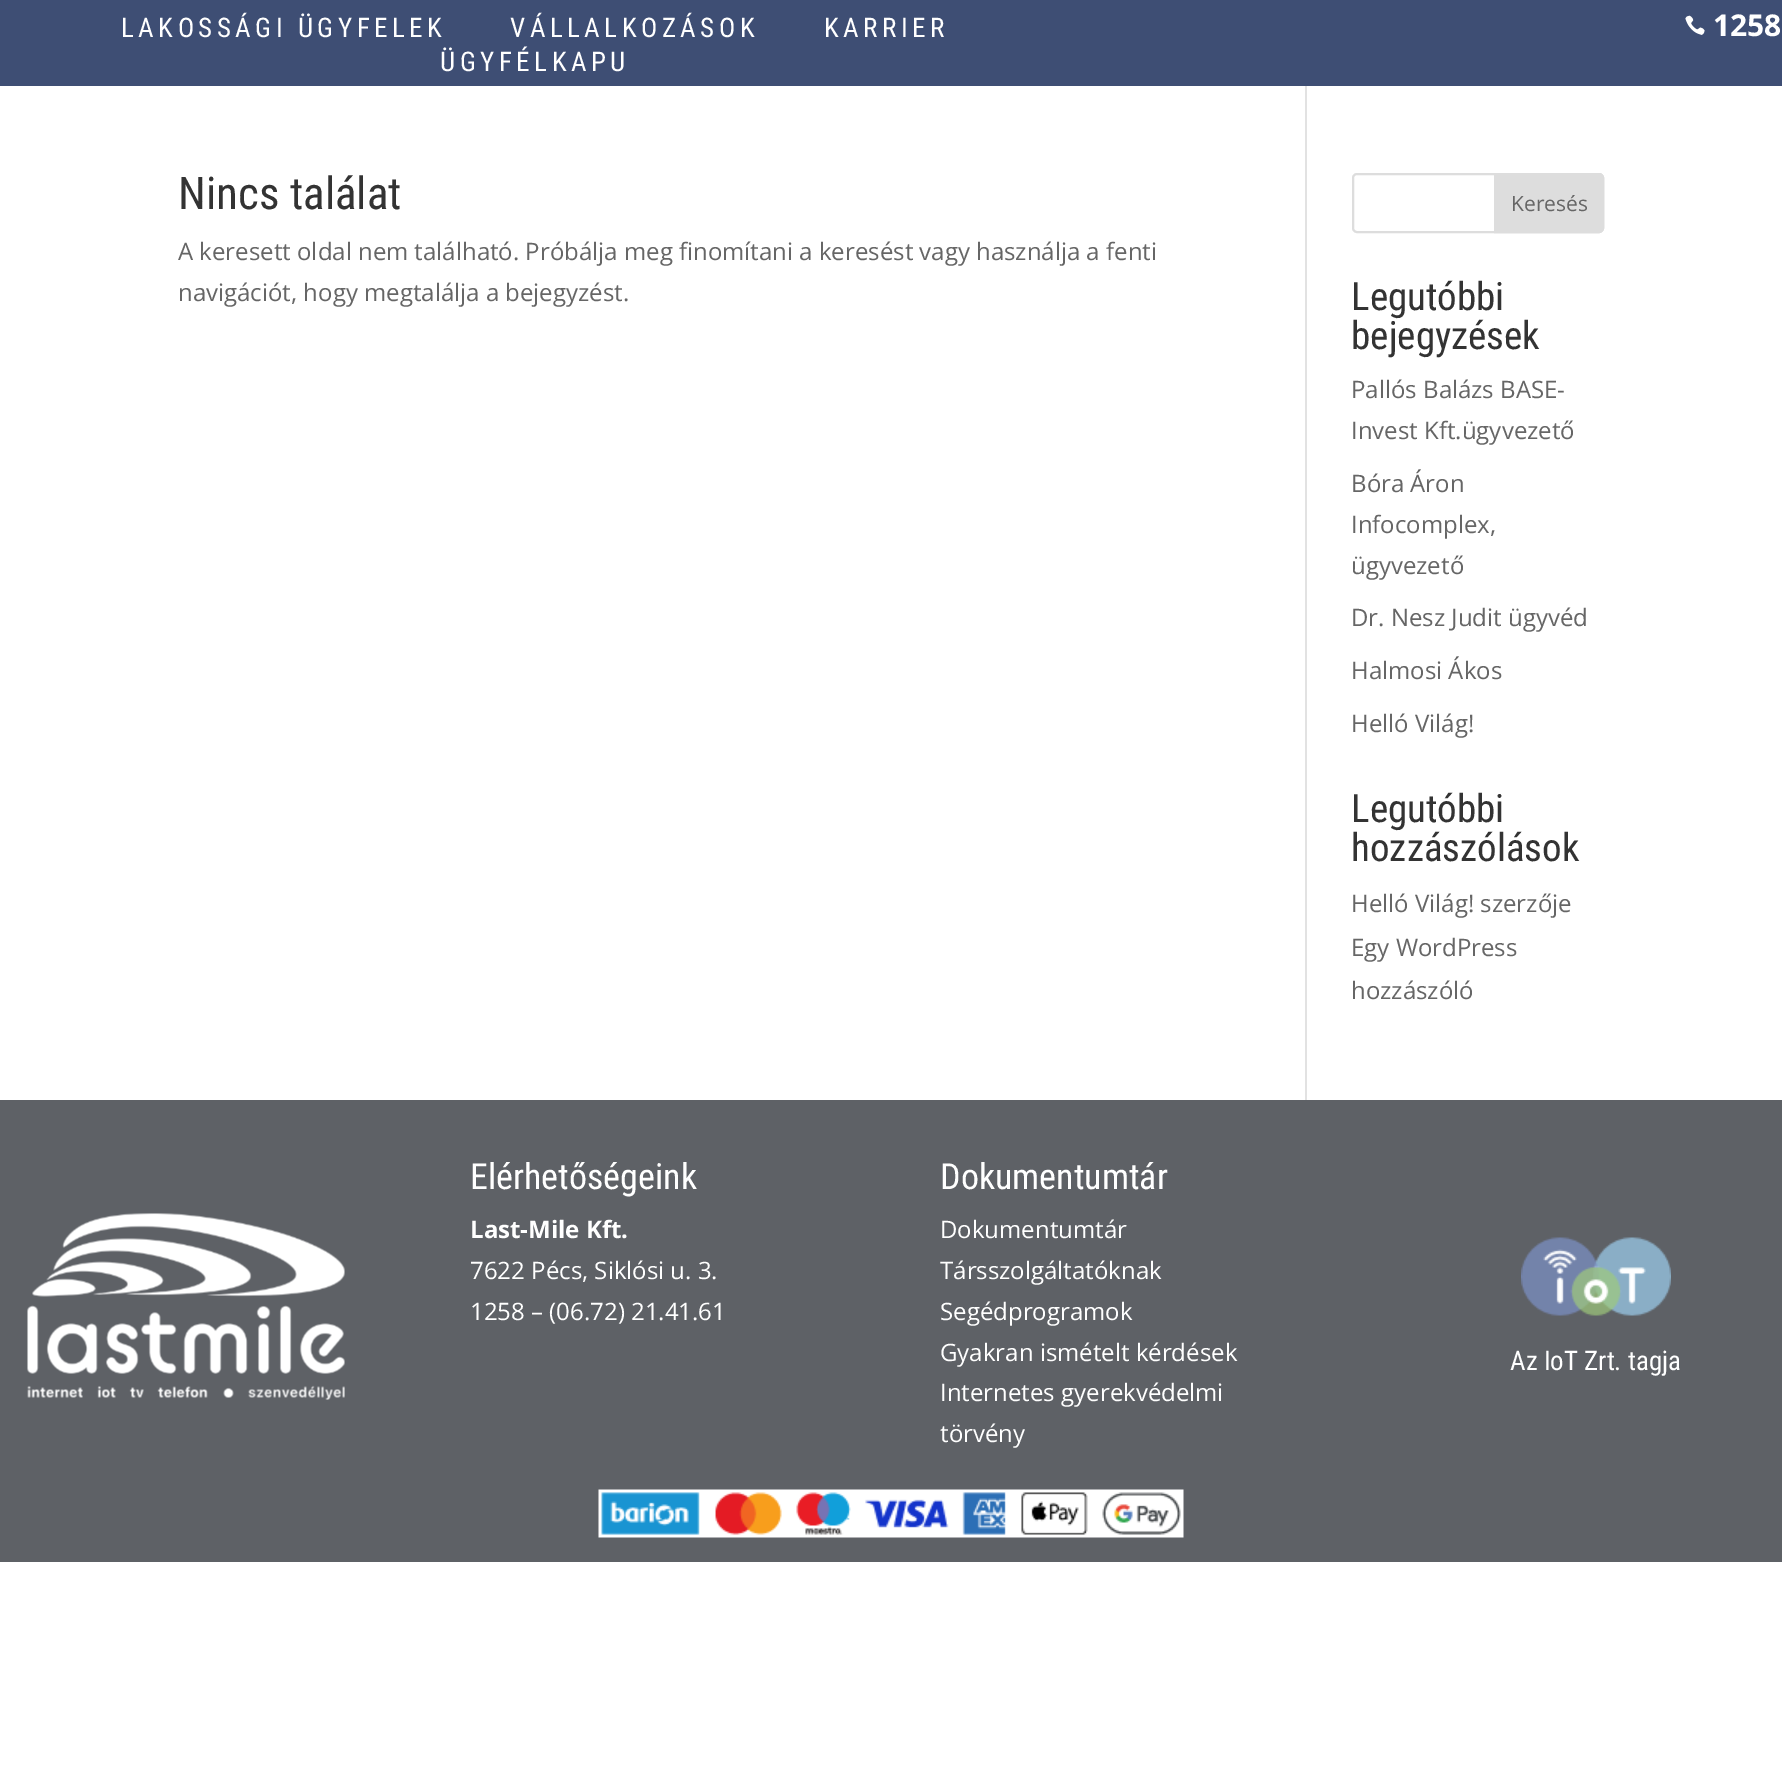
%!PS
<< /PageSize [1782 1788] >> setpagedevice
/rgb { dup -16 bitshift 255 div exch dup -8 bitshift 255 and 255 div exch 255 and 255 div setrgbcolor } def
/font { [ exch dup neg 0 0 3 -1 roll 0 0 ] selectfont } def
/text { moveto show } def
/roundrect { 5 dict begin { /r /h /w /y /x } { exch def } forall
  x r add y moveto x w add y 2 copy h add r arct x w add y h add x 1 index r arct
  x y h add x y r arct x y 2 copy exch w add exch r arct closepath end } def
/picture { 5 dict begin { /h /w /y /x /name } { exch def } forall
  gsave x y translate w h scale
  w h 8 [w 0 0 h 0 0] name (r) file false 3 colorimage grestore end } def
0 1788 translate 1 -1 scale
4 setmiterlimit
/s1 { /OpenSans-Bold 30 font 16#FFFFFF rgb } def
/s2 { /RobotoCondensed-Regular 45 font 16#333333 rgb } def
/s3 { /OpenSans-Regular 24 font 16#666666 rgb } def
/s4 { /OpenSans-Regular 21 font 16#666666 rgb } def
/s5 { /RobotoCondensed-Regular 39 font 16#333333 rgb } def
/s6 { /RobotoCondensed-Regular 36 font 16#FFFFFF rgb } def
/s7 { /OpenSans-Bold 24 font 16#FFFFFF rgb } def
/s8 { /OpenSans-Regular 24 font 16#FFFFFF rgb } def
/s9 { /RobotoCondensed-Regular 27 font 16#FFFFFF rgb } def
16#FFFFFF rgb
0 0 1782 1788 rectfill
16#3E4E74 rgb
0 0 1782 86 rectfill
/RobotoCondensed-Regular 27 font
16#FFFFFF rgb
121 37 moveto 4.5 0 (LAKOSSÁGI ÜGYFELEK) ashow
510 37 moveto 4.5 0 (VÁLLALKOZÁSOK) ashow
824 37 moveto 4.5 0 (KARRIER) ashow
440 71 moveto 4.5 0 (ÜGYFÉLKAPU) ashow
(pic1.raw) 1685 15 20 20 picture
s1
(1258) 1713 36 text
16#E2E2E2 rgb
1305 86 2 1014 rectfill
s2
(Nincs találat) 178 209 text
s3
(A keresett oldal nem található. Próbálja meg finomítani a keresést vagy használja a fenti) 178 260 text
(navigációt, hogy megtalálja a bejegyzést.) 178 301 text
16#DDDDDD rgb
2 setlinewidth
1353 174 250 58 4 roundrect stroke
1495 174 moveto 1599 174 lineto 1601 174 1603 176 1603 178 curveto 1603 228 lineto 1603 230 1601 232 1599 232 curveto 1495 232 lineto closepath gsave fill grestore
stroke
s4
(Keresés) 1511 211 text
s5
(Legutóbbi) 1351 310 text
(bejegyzések) 1351 349 text
s3
(Pallós Balázs BASE-) 1351 398 text
(Invest Kft.ügyvezető) 1351 439 text
(Bóra Áron) 1351 492 text
(Infocomplex,) 1351 533 text
(ügyvezető) 1351 574 text
(Dr. Nesz Judit ügyvéd) 1351 626 text
(Halmosi Ákos) 1351 679 text
(Helló Világ!) 1351 732 text
s5
(Legutóbbi) 1351 822 text
(hozzászólások) 1351 861 text
s3
(Helló Világ! szerzője) 1351 912 text
(Egy WordPress) 1351 956 text
(hozzászóló) 1351 999 text
16#5E6166 rgb
0 1100 1782 462 rectfill
(pic2.raw) 27 1213 318 187 picture
s6
(Elérhetőségeink) 470 1189 text
s7
(Last-Mile Kft.) 470 1238 text
s8
(7622 Pécs, Siklósi u. 3.) 470 1279 text
(1258 – \(06.72\) 21.41.61) 470 1320 text
s6
(Dokumentumtár) 940 1189 text
s8
(Dokumentumtár) 940 1238 text
(Társszolgáltatóknak) 940 1279 text
(Segédprogramok) 940 1320 text
(Gyakran ismételt kérdések) 940 1361 text
(Internetes gyerekvédelmi) 940 1401 text
(törvény) 940 1442 text
(pic3.raw) 1521 1237 150 79 picture
s9
(Az IoT Zrt. tagja) 1510 1370 text
(pic4.raw) 598 1489 586 49 picture
showpage
